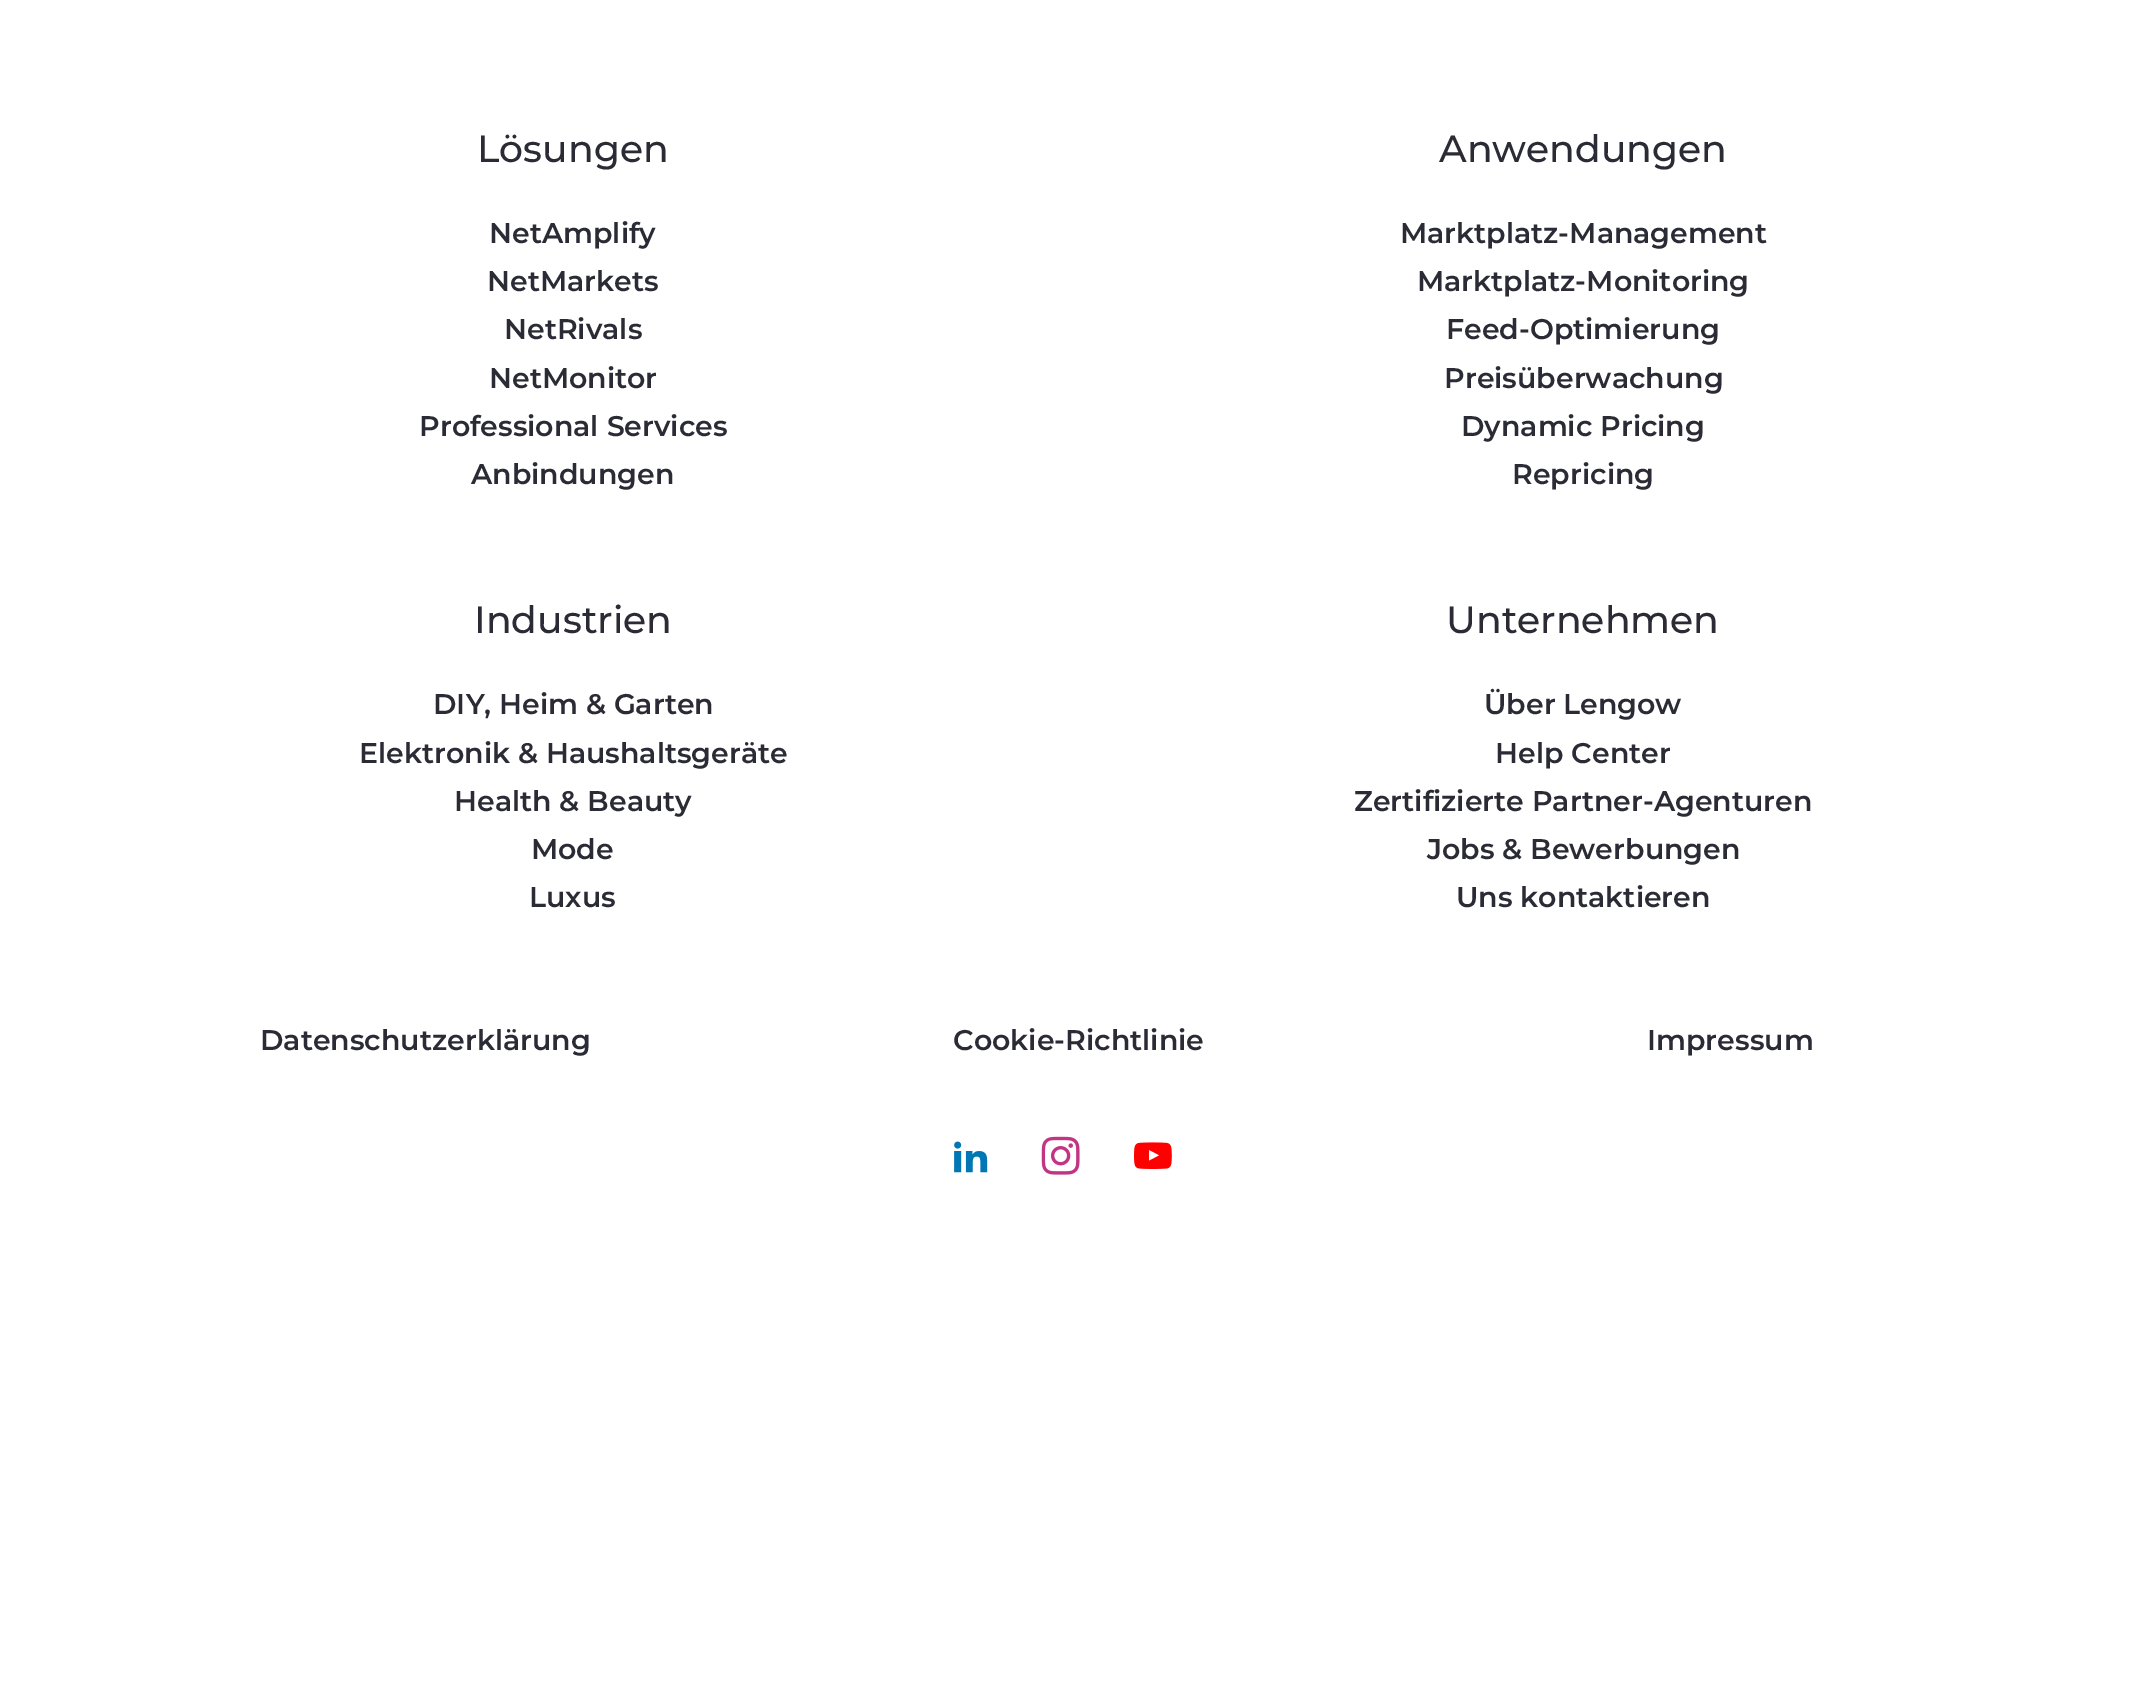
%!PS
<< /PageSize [2155 1704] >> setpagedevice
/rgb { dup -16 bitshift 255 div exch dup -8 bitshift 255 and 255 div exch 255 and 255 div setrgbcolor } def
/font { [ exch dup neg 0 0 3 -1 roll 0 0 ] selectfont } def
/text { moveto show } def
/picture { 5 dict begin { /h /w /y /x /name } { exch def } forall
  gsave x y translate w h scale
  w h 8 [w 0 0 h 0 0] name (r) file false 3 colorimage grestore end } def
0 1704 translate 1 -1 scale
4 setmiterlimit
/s1 { /Montserrat-Medium 37.75 font 16#2A2B35 rgb } def
/s2 { /Montserrat-SemiBold 28.4 font 16#2A2B35 rgb } def
16#FFFFFF rgb
0 0 2155 1704 rectfill
s1
(Lösungen) 477 162 text
s2
(NetAmplify) 489 243 text
(NetMarkets) 487 291 text
(NetRivals) 504 339 text
(NetMonitor) 489 388 text
(Professional Services) 419 436 text
(Anbindungen) 471 484 text
s1
(Anwendungen) 1439 162 text
s2
(Marktplatz-Management) 1400 243 text
(Marktplatz-Monitoring) 1417 291 text
(Feed-Optimierung) 1446 339 text
(Preisüberwachung) 1444 388 text
(Dynamic Pricing) 1461 436 text
(Repricing) 1512 484 text
s1
(Industrien) 474 633 text
s2
(DIY, Heim & Garten) 433 714 text
(Elektronik & Haushaltsgeräte) 359 763 text
(Health & Beauty) 454 811 text
(Mode) 531 859 text
(Luxus) 529 907 text
s1
(Unternehmen) 1446 633 text
s2
(Über Lengow) 1484 714 text
(Help Center) 1495 763 text
(Zertifizierte Partner-Agenturen) 1354 811 text
(Jobs & Bewerbungen) 1427 859 text
(Uns kontaktieren) 1456 907 text
(Datenschutzerklärung) 260 1050 text
(Cookie-Richtlinie) 953 1050 text
(Impressum) 1647 1050 text
(pic1.raw) 954 1141 34 32 picture
(pic2.raw) 1041 1136 39 39 picture
(pic3.raw) 1134 1142 38 27 picture
showpage
